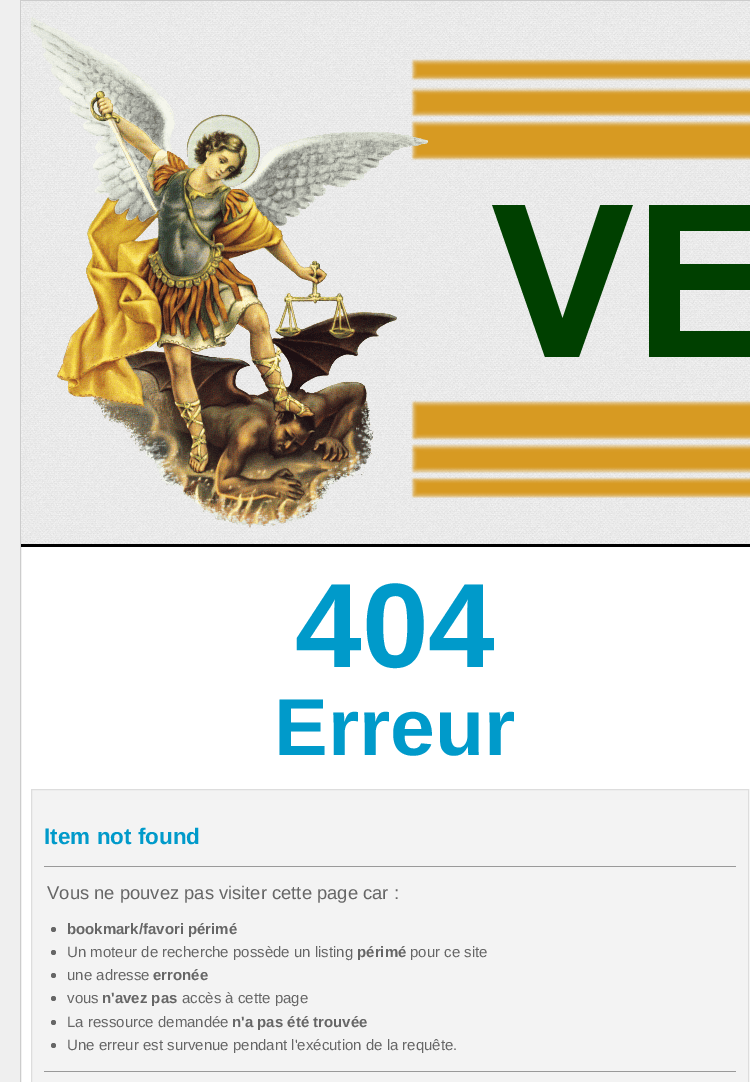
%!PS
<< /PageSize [750 1082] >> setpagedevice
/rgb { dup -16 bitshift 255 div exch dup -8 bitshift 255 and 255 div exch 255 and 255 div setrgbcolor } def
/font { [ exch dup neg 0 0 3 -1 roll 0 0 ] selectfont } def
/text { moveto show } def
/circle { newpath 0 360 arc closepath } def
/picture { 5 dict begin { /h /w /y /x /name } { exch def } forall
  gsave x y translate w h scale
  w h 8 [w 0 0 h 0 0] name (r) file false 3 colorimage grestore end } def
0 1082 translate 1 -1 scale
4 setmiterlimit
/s1 { /LiberationSans-Bold 120 font 16#009ACA rgb } def
/s2 { /LiberationSans-Bold 80.5 font 16#009ACA rgb } def
/s3 { /LiberationSans-Bold 22.5 font 16#009ACA rgb } def
/s4 { /LiberationSans-Regular 18.4 font 16#666666 rgb } def
/s5 { /LiberationSans-Bold 15 font 16#666666 rgb } def
/s6 { /LiberationSans-Regular 15 font 16#666666 rgb } def
16#EFEFEF rgb
0 0 750 1082 rectfill
16#FFFFFF rgb
21 547 729 535 rectfill
16#CCCCCC rgb
20.5 0.5 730 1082 rectstroke
(pic1.raw) 21 1 729 543 picture
16#000000 rgb
21 544 729 3 rectfill
(pic2.raw) 31 17 719 513 picture
s1
(404) 295 667 text
s2
(Erreur) 274 755 text
16#F3F3F3 rgb
31.5 789.5 moveto 748.5 789.5 lineto 748.5 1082.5 lineto 31.5 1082.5 lineto closepath gsave fill grestore
16#DDDDDD rgb
stroke
s3
(Item not found) 44 844 text
16#999999 rgb
44 866 692 1 rectfill
s4
(Vous ne pouvez pas visiter cette page car :) 47 899 text
53.5 929.5 2.5 circle fill
s5
(bookmark/favori périmé) 67 934 text
53.5 952.5 2.5 circle fill
s6
(Un moteur de recherche possède un listing) 67 957 text
s5
(périmé) 357 957 text
s6
(pour ce site) 410 957 text
53.5 975.5 2.5 circle fill
(une adresse) 67 980 text
s5
(erronée) 153 980 text
53.5 998.5 2.5 circle fill
s6
(vous) 67 1003 text
s5
(n'avez pas) 102 1003 text
s6
(accès à cette page) 182 1003 text
53.5 1022.5 2.5 circle fill
(La ressource demandée) 67 1027 text
s5
(n'a pas été trouvée) 232 1027 text
53.5 1045.5 2.5 circle fill
s6
(Une erreur est survenue pendant l'exécution de la requête.) 67 1050 text
16#999999 rgb
44 1071 692 1 rectfill
showpage
